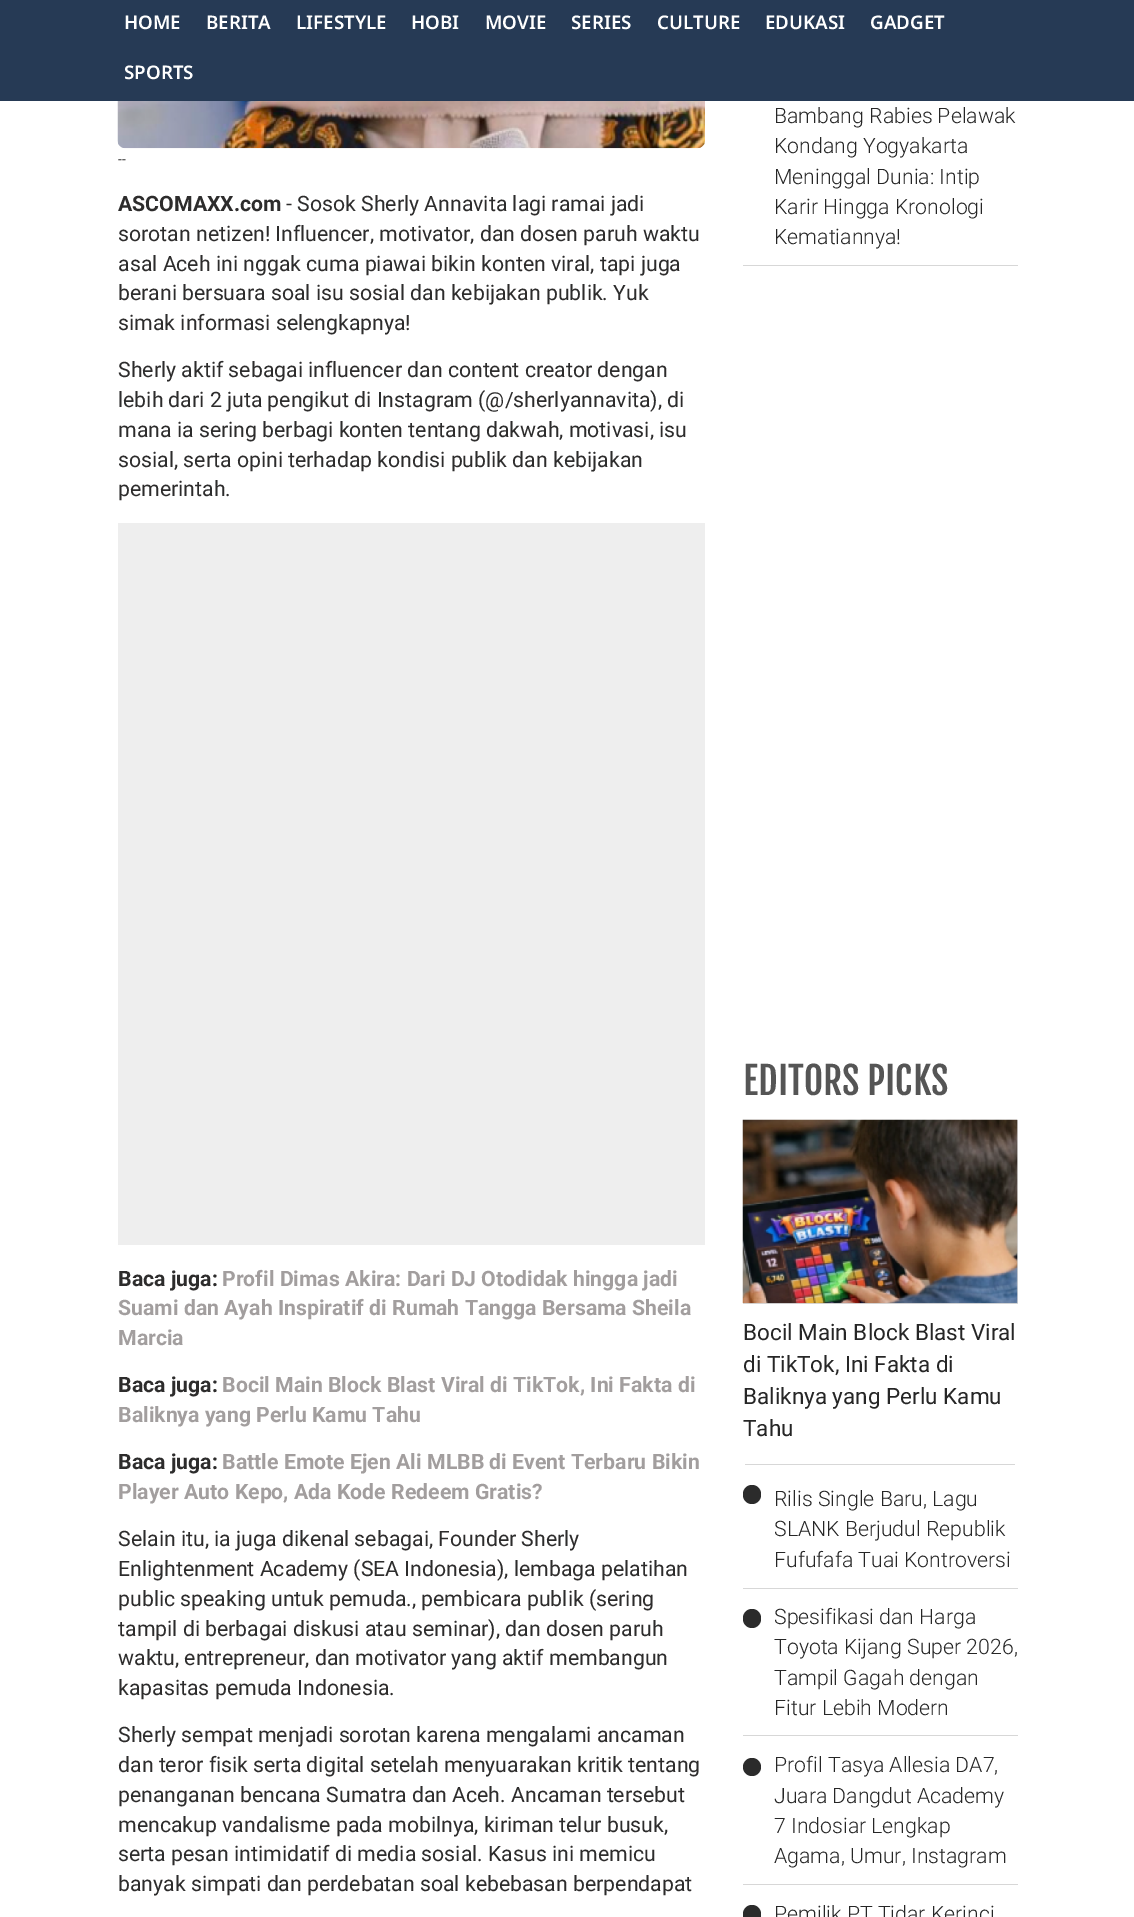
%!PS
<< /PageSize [1134 1917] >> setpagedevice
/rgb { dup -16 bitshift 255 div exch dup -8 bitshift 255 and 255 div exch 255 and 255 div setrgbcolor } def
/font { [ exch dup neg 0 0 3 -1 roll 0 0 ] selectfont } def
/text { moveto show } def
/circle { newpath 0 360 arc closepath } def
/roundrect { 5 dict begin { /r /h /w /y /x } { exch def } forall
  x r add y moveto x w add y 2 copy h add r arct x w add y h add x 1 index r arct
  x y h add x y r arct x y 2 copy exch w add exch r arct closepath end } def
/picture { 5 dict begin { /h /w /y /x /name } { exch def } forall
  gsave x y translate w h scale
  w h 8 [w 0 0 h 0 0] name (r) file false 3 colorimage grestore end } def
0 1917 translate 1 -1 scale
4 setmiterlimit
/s1 { /NotoSans-SemiBold 18.75 font 16#FFFFFF rgb } def
/s2 { /Roboto-Regular 14 font 16#2D2C2C rgb } def
/s3 { /Roboto-Bold 21.25 font 16#2D2C2C rgb } def
/s4 { /Roboto-Regular 21.25 font 16#2D2C2C rgb } def
/s5 { /Roboto-Bold 21.25 font 16#A29E9E rgb } def
/s6 { /Roboto-Light 21.25 font 16#262626 rgb } def
/s7 { /FjallaOne-Regular 37.5 font 16#555555 rgb } def
/s8 { /Roboto-Regular 22.5 font 16#262626 rgb } def
16#FFFFFF rgb
0 0 1134 1917 rectfill
16#263A55 rgb
0 0 1134 101 rectfill
s1
(HOME) 124 29 text
(BERITA) 206 29 text
(LIFESTYLE) 296 29 text
(HOBI) 411 29 text
(MOVIE) 485 29 text
(SERIES) 571 29 text
(CULTURE) 657 29 text
(EDUKASI) 765 29 text
(GADGET) 870 29 text
(SPORTS) 124 79 text
(pic1.raw) 117 101 588 48 picture
s2
(--) 118 164 text
s3
(ASCOMAXX.com) 118 211 text
s4
(- Sosok Sherly Annavita lagi ramai jadi) 286 211 text
(sorotan netizen! Influencer, motivator, dan dosen paruh waktu) 118 241 text
(asal Aceh ini nggak cuma piawai bikin konten viral, tapi juga) 118 271 text
(berani bersuara soal isu sosial dan kebijakan publik. Yuk) 118 300 text
(simak informasi selengkapnya!) 118 330 text
(Sherly aktif sebagai influencer dan content creator dengan) 118 377 text
(lebih dari 2 juta pengikut di Instagram \(@/sherlyannavita\), di) 118 407 text
(mana ia sering berbagi konten tentang dakwah, motivasi, isu) 118 437 text
(sosial, serta opini terhadap kondisi publik dan kebijakan) 118 467 text
(pemerintah.) 118 496 text
16#EEEEEE rgb
118 523 587 722 rectfill
s3
(Baca juga:) 118 1286 text
s5
(Profil Dimas Akira: Dari DJ Otodidak hingga jadi) 222 1286 text
(Suami dan Ayah Inspiratif di Rumah Tangga Bersama Sheila) 118 1315 text
(Marcia) 118 1345 text
s3
(Baca juga:) 118 1392 text
s5
(Bocil Main Block Blast Viral di TikTok, Ini Fakta di) 222 1392 text
(Baliknya yang Perlu Kamu Tahu) 118 1422 text
s3
(Baca juga:) 118 1469 text
s5
(Battle Emote Ejen Ali MLBB di Event Terbaru Bikin) 222 1469 text
(Player Auto Kepo, Ada Kode Redeem Gratis?) 118 1499 text
s4
(Selain itu, ia juga dikenal sebagai, Founder Sherly) 118 1546 text
(Enlightenment Academy \(SEA Indonesia\), lembaga pelatihan) 118 1576 text
(public speaking untuk pemuda., pembicara publik \(sering) 118 1606 text
(tampil di berbagai diskusi atau seminar\), dan dosen paruh) 118 1636 text
(waktu, entrepreneur, dan motivator yang aktif membangun) 118 1665 text
(kapasitas pemuda Indonesia.) 118 1695 text
(Sherly sempat menjadi sorotan karena mengalami ancaman) 118 1742 text
(dan teror fisik serta digital setelah menyuarakan kritik tentang) 118 1772 text
(penanganan bencana Sumatra dan Aceh. Ancaman tersebut) 118 1802 text
(mencakup vandalisme pada mobilnya, kiriman telur busuk,) 118 1832 text
(serta pesan intimidatif di media sosial. Kasus ini memicu) 118 1861 text
(banyak simpati dan perdebatan soal kebebasan berpendapat) 118 1891 text
16#D7D7D7 rgb
743 265 275 1 rectfill
s6
(Bambang Rabies Pelawak) 774 123 text
(Kondang Yogyakarta) 774 153 text
(Meninggal Dunia: Intip) 774 184 text
(Karir Hingga Kronologi) 774 214 text
(Kematiannya!) 774 244 text
s7
(EDITORS PICKS) 743 1095 text
16#D7D7D7 rgb
745 1464 270 1 rectfill
743 1120 275 184 rectfill
(pic2.raw) 742 1119 276 185 picture
s8
(Bocil Main Block Blast Viral) 743 1340 text
(di TikTok, Ini Fakta di) 743 1372 text
(Baliknya yang Perlu Kamu) 743 1404 text
(Tahu) 743 1436 text
16#D7D7D7 rgb
743 1588 275 1 rectfill
16#2B2B2B rgb
743 1485 18 19 9 roundrect fill
s6
(Rilis Single Baru, Lagu) 774 1506 text
(SLANK Berjudul Republik) 774 1536 text
(Fufufafa Tuai Kontroversi) 774 1567 text
16#D7D7D7 rgb
743 1735 275 1 rectfill
16#2B2B2B rgb
743 1609 18 19 9 roundrect fill
s6
(Spesifikasi dan Harga) 774 1624 text
(Toyota Kijang Super 2026,) 774 1654 text
(Tampil Gagah dengan) 774 1685 text
(Fitur Lebih Modern) 774 1715 text
16#D7D7D7 rgb
743 1884 275 1 rectfill
16#2B2B2B rgb
752 1767 9 circle fill
s6
(Profil Tasya Allesia DA7,) 774 1772 text
(Juara Dangdut Academy) 774 1803 text
(7 Indosiar Lengkap) 774 1833 text
(Agama, Umur, Instagram) 774 1863 text
16#2B2B2B rgb
743 1905 18 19 9 roundrect fill
s6
(Pemilik PT Tidar Kerinci) 774 1921 text
showpage
